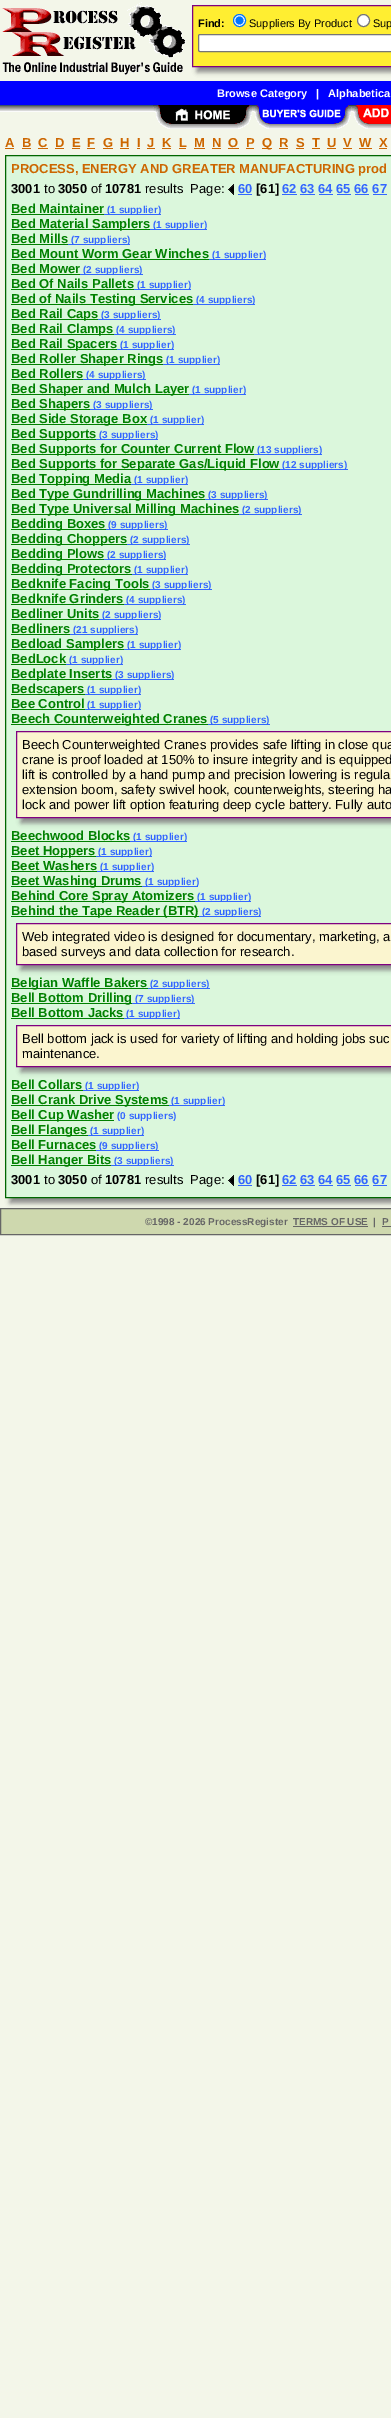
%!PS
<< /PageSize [391 2418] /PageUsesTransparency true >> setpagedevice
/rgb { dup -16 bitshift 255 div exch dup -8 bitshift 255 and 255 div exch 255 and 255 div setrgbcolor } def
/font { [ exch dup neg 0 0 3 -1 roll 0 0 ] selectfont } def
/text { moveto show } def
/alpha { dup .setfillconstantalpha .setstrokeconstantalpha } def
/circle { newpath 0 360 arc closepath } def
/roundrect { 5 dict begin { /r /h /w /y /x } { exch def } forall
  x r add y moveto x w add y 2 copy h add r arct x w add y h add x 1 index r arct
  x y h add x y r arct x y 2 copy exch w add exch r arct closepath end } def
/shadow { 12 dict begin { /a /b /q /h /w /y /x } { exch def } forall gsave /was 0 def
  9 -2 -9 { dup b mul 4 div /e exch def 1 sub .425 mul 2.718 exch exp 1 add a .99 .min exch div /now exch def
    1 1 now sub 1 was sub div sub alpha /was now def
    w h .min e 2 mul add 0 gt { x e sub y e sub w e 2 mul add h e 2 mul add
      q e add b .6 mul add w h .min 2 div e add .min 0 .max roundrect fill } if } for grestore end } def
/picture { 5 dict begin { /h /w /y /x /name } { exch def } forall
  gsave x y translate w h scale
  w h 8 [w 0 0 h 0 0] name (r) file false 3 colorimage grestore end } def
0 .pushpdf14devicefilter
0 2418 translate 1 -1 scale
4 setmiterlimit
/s1 { /LiberationSans-Bold 11 font 16#000000 rgb } def
/s2 { /LiberationSans-Regular 11 font 16#000000 rgb } def
/s3 { /LiberationSans-Bold 11 font 16#FFFFFF rgb } def
/s4 { /LiberationSans-Bold 13 font 16#CC6600 rgb } def
/s5 { /LiberationSans-Bold 13 font 16#000000 rgb } def
/s6 { /LiberationSans-Regular 13 font 16#000000 rgb } def
/s7 { /LiberationSans-Bold 13 font 16#3366FF rgb } def
/s8 { /LiberationSans-Bold 13 font 16#008000 rgb } def
/s9 { /LiberationSans-Bold 10 font 16#3366FF rgb } def
/s10 { /LiberationSans-Bold 10 font 16#666666 rgb } def
16#F3F6E9 rgb
0 0 391 2418 rectfill
(pic1.raw) 2 2 184 73 picture
16#888888 rgb
197 10 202 62 0 2.5 1 shadow
16#FFEE31 rgb
192.5 5.5 moveto 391.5 5.5 lineto 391.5 66.5 lineto 192.5 66.5 lineto closepath gsave fill grestore
16#800080 rgb
stroke
s1
(Find:) 198 27 text
16#FFFFFF rgb
239.5 20.5 6 circle gsave fill grestore
16#0075FF rgb
stroke
239.5 20.5 4 circle fill
s2
(Suppliers By Product) 249 27 text
16#FFFFFF rgb
363.5 20.5 6 circle gsave fill grestore
16#767676 rgb
stroke
s2
(Sup) 373 27 text
16#FFFFFF rgb
198.5 34.5 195 17 1.5 roundrect gsave fill grestore
16#767676 rgb
stroke
16#0000FF rgb
0 81 391 24 rectfill
s3
(Browse Category) 217 97 text
(|) 316 97 text
(Alphabetica) 328 97 text
(pic2.raw) 0 105 153 7 picture
(pic3.raw) 153 105 99 24 picture
(pic4.raw) 252 105 99 24 picture
(pic5.raw) 351 105 40 24 picture
s4
(A) 5 147 text
5 148 9 1 rectfill
(B) 22 147 text
22 148 9 1 rectfill
(C) 38 147 text
38 148 10 1 rectfill
(D) 55 147 text
55 148 9 1 rectfill
(E) 72 147 text
72 148 8 1 rectfill
(F) 87 147 text
87 148 8 1 rectfill
(G) 103 147 text
103 148 10 1 rectfill
(H) 120 147 text
120 148 9 1 rectfill
(I) 137 147 text
137 148 3 1 rectfill
(J) 147 147 text
147 148 8 1 rectfill
(K) 162 147 text
162 148 9 1 rectfill
(L) 179 147 text
179 148 7 1 rectfill
(M) 194 147 text
194 148 11 1 rectfill
(N) 212 147 text
212 148 9 1 rectfill
(O) 228 147 text
228 148 11 1 rectfill
(P) 246 147 text
246 148 8 1 rectfill
262 148 10 1 rectfill
(Q) 262 147 text
(R) 279 147 text
279 148 9 1 rectfill
(S) 296 147 text
296 148 8 1 rectfill
(T) 312 147 text
312 148 8 1 rectfill
(U) 327 147 text
327 148 9 1 rectfill
(V) 343 147 text
343 148 9 1 rectfill
(W) 359 147 text
359 148 13 1 rectfill
(X) 379 147 text
379 148 8 1 rectfill
16#888888 rgb
10 160 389 1043 0 2.5 1 shadow
16#DBF7DC rgb
5.5 155.5 moveto 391.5 155.5 lineto 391.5 1197.5 lineto 5.5 1197.5 lineto closepath gsave fill grestore
16#006600 rgb
stroke
s4
(PROCESS, ENERGY AND GREATER MANUFACTURING prod) 11 173 text
s5
(3001) 11 193 text
s6
(to) 44 193 text
s5
(3050) 58 193 text
s6
(of) 91 193 text
s5
(10781) 105 193 text
s6
(results  Page:) 145 193 text
(pic6.raw) 228 184 6 11 picture
s7
(60) 238 193 text
238 194 14 1 rectfill
s5
([61]) 256 193 text
s7
(62 63 64 65 66 67) 282 193 text
282 194 15 1 rectfill
300 194 15 1 rectfill
319 194 14 1 rectfill
337 194 14 1 rectfill
355 194 14 1 rectfill
373 194 14 1 rectfill
s8
(Bed Maintainer) 11 213 text
11 214 93 1 rectfill
16#3366FF rgb
104 214 57 1 rectfill
s9
(\(1 supplier\)) 107 213 text
16#008000 rgb
11 229 139 1 rectfill
s8
(Bed Material Samplers) 11 228 text
16#3366FF rgb
150 229 57 1 rectfill
s9
(\(1 supplier\)) 153 228 text
s8
(Bed Mills) 11 243 text
11 244 57 1 rectfill
16#3366FF rgb
68 244 62 1 rectfill
s9
(\(7 suppliers\)) 71 243 text
s8
(Bed Mount Worm Gear Winches) 11 258 text
11 259 198 1 rectfill
16#3366FF rgb
209 259 57 1 rectfill
s9
(\(1 supplier\)) 212 258 text
s8
(Bed Mower) 11 273 text
11 274 69 1 rectfill
16#3366FF rgb
80 274 63 1 rectfill
s9
(\(2 suppliers\)) 83 273 text
s8
(Bed Of Nails Pallets) 11 288 text
11 289 123 1 rectfill
16#3366FF rgb
134 289 57 1 rectfill
s9
(\(1 supplier\)) 137 288 text
16#008000 rgb
11 304 182 1 rectfill
s8
(Bed of Nails Testing Services) 11 303 text
16#3366FF rgb
193 304 62 1 rectfill
s9
(\(4 suppliers\)) 196 303 text
16#008000 rgb
11 319 87 1 rectfill
s8
(Bed Rail Caps) 11 318 text
16#3366FF rgb
98 319 63 1 rectfill
s9
(\(3 suppliers\)) 101 318 text
16#008000 rgb
11 334 103 1 rectfill
s8
(Bed Rail Clamps) 11 333 text
16#3366FF rgb
114 334 62 1 rectfill
s9
(\(4 suppliers\)) 116 333 text
16#008000 rgb
11 349 106 1 rectfill
s8
(Bed Rail Spacers) 11 348 text
16#3366FF rgb
117 349 57 1 rectfill
s9
(\(1 supplier\)) 120 348 text
16#008000 rgb
11 364 152 1 rectfill
s8
(Bed Roller Shaper Rings) 11 363 text
16#3366FF rgb
163 364 57 1 rectfill
s9
(\(1 supplier\)) 166 363 text
s8
(Bed Rollers) 11 378 text
11 379 72 1 rectfill
16#3366FF rgb
83 379 63 1 rectfill
s9
(\(4 suppliers\)) 86 378 text
16#008000 rgb
11 394 178 1 rectfill
s8
(Bed Shaper and Mulch Layer) 11 393 text
16#3366FF rgb
189 394 57 1 rectfill
s9
(\(1 supplier\)) 192 393 text
16#008000 rgb
11 409 79 1 rectfill
s8
(Bed Shapers) 11 408 text
16#3366FF rgb
90 409 63 1 rectfill
s9
(\(3 suppliers\)) 93 408 text
16#008000 rgb
11 424 136 1 rectfill
s8
(Bed Side Storage Box) 11 423 text
16#3366FF rgb
147 424 57 1 rectfill
s9
(\(1 supplier\)) 150 423 text
16#008000 rgb
11 439 85 1 rectfill
s8
(Bed Supports) 11 438 text
16#3366FF rgb
96 439 62 1 rectfill
s9
(\(3 suppliers\)) 99 438 text
16#008000 rgb
11 454 243 1 rectfill
s8
(Bed Supports for Counter Current Flow) 11 453 text
16#3366FF rgb
254 454 68 1 rectfill
s9
(\(13 suppliers\)) 257 453 text
16#008000 rgb
11 469 269 1 rectfill
s8
(Bed Supports for Separate Gas/Liquid Flow) 11 468 text
16#3366FF rgb
280 469 68 1 rectfill
s9
(\(12 suppliers\)) 282 468 text
16#008000 rgb
11 484 120 1 rectfill
s8
(Bed Topping Media) 11 483 text
16#3366FF rgb
131 484 57 1 rectfill
s9
(\(1 supplier\)) 134 483 text
16#008000 rgb
11 499 194 1 rectfill
s8
(Bed Type Gundrilling Machines) 11 498 text
16#3366FF rgb
205 499 63 1 rectfill
s9
(\(3 suppliers\)) 208 498 text
16#008000 rgb
11 514 228 1 rectfill
s8
(Bed Type Universal Milling Machines) 11 513 text
16#3366FF rgb
239 514 63 1 rectfill
s9
(\(2 suppliers\)) 242 513 text
16#008000 rgb
11 529 95 1 rectfill
s8
(Bedding Boxes) 11 528 text
16#3366FF rgb
106 529 62 1 rectfill
s9
(\(9 suppliers\)) 108 528 text
16#008000 rgb
11 544 116 1 rectfill
s8
(Bedding Choppers) 11 543 text
16#3366FF rgb
127 544 63 1 rectfill
s9
(\(2 suppliers\)) 130 543 text
16#008000 rgb
11 559 93 1 rectfill
s8
(Bedding Plows) 11 558 text
16#3366FF rgb
104 559 62 1 rectfill
s9
(\(2 suppliers\)) 107 558 text
16#008000 rgb
11 574 121 1 rectfill
s8
(Bedding Protectors) 11 573 text
16#3366FF rgb
132 574 56 1 rectfill
s9
(\(1 supplier\)) 134 573 text
16#008000 rgb
11 589 139 1 rectfill
s8
(Bedknife Facing Tools) 11 588 text
16#3366FF rgb
150 589 62 1 rectfill
s9
(\(3 suppliers\)) 152 588 text
s8
(Bedknife Grinders) 11 603 text
11 604 113 1 rectfill
16#3366FF rgb
124 604 62 1 rectfill
s9
(\(4 suppliers\)) 126 603 text
s8
(Bedliner Units) 11 618 text
11 619 88 1 rectfill
16#3366FF rgb
99 619 62 1 rectfill
s9
(\(2 suppliers\)) 102 618 text
s8
(Bedliners) 11 633 text
11 634 59 1 rectfill
16#3366FF rgb
70 634 68 1 rectfill
s9
(\(21 suppliers\)) 73 633 text
16#008000 rgb
11 649 113 1 rectfill
s8
(Bedload Samplers) 11 648 text
16#3366FF rgb
124 649 57 1 rectfill
s9
(\(1 supplier\)) 127 648 text
s8
(BedLock) 11 663 text
11 664 55 1 rectfill
16#3366FF rgb
66 664 57 1 rectfill
s9
(\(1 supplier\)) 69 663 text
16#008000 rgb
11 679 101 1 rectfill
s8
(Bedplate Inserts) 11 678 text
16#3366FF rgb
112 679 62 1 rectfill
s9
(\(3 suppliers\)) 115 678 text
16#008000 rgb
11 694 74 1 rectfill
s8
(Bedscapers) 11 693 text
16#3366FF rgb
85 694 56 1 rectfill
s9
(\(1 supplier\)) 87 693 text
s8
(Bee Control) 11 708 text
11 709 74 1 rectfill
16#3366FF rgb
85 709 56 1 rectfill
s9
(\(1 supplier\)) 87 708 text
16#008000 rgb
11 724 197 1 rectfill
s8
(Beech Counterweighted Cranes) 11 723 text
16#3366FF rgb
208 724 62 1 rectfill
s9
(\(5 suppliers\)) 210 723 text
16#888888 rgb
21 736 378 87 0 2.5 1 shadow
16#FBF5CF rgb
16.5 731.5 moveto 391.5 731.5 lineto 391.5 817.5 lineto 16.5 817.5 lineto closepath gsave fill grestore
16#800080 rgb
stroke
s6
(Beech Counterweighted Cranes provides safe lifting in close qua) 22 749 text
(crane is proof loaded at 150% to insure integrity and is equipped) 22 764 text
(lift is controlled by a hand pump and precision lowering is regula) 22 779 text
(extension boom, safety swivel hook, counterweights, steering ha) 22 794 text
(lock and power lift option featuring deep cycle battery. Fully auto) 22 809 text
s8
(Beechwood Blocks) 11 840 text
11 841 119 1 rectfill
16#3366FF rgb
130 841 57 1 rectfill
s9
(\(1 supplier\)) 133 840 text
16#008000 rgb
11 856 85 1 rectfill
s8
(Beet Hoppers) 11 855 text
16#3366FF rgb
96 856 56 1 rectfill
s9
(\(1 supplier\)) 98 855 text
s8
(Beet Washers) 11 870 text
11 871 86 1 rectfill
16#3366FF rgb
97 871 57 1 rectfill
s9
(\(1 supplier\)) 100 870 text
16#008000 rgb
11 886 131 1 rectfill
s8
(Beet Washing Drums) 11 885 text
16#3366FF rgb
142 886 56 1 rectfill
s9
(\(1 supplier\)) 145 885 text
16#008000 rgb
11 901 184 1 rectfill
s8
(Behind Core Spray Atomizers) 11 900 text
16#3366FF rgb
195 901 56 1 rectfill
s9
(\(1 supplier\)) 197 900 text
16#008000 rgb
11 916 188 1 rectfill
s8
(Behind the Tape Reader \(BTR\)) 11 915 text
16#3366FF rgb
199 916 62 1 rectfill
s9
(\(2 suppliers\)) 202 915 text
16#888888 rgb
21 928 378 42 0 2.5 1 shadow
16#FBF5CF rgb
16.5 923.5 moveto 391.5 923.5 lineto 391.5 964.5 lineto 16.5 964.5 lineto closepath gsave fill grestore
16#800080 rgb
stroke
s6
(Web integrated video is designed for documentary, marketing, a) 22 941 text
(based surveys and data collection for research.) 22 956 text
16#008000 rgb
11 988 137 1 rectfill
s8
(Belgian Waffle Bakers) 11 987 text
16#3366FF rgb
148 988 62 1 rectfill
s9
(\(2 suppliers\)) 150 987 text
16#008000 rgb
11 1003 121 1 rectfill
s8
(Bell Bottom Drilling) 11 1002 text
16#3366FF rgb
132 1003 63 1 rectfill
s9
(\(7 suppliers\)) 135 1002 text
s8
(Bell Bottom Jacks) 11 1017 text
11 1018 113 1 rectfill
16#3366FF rgb
124 1018 56 1 rectfill
s9
(\(1 supplier\)) 126 1017 text
16#888888 rgb
21 1030 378 42 0 2.5 1 shadow
16#FBF5CF rgb
16.5 1025.5 moveto 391.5 1025.5 lineto 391.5 1066.5 lineto 16.5 1066.5 lineto closepath gsave fill grestore
16#800080 rgb
stroke
s6
(Bell bottom jack is used for variety of lifting and holding jobs suc) 22 1043 text
(maintenance.) 22 1058 text
s8
(Bell Collars) 11 1089 text
11 1090 72 1 rectfill
16#3366FF rgb
83 1090 56 1 rectfill
s9
(\(1 supplier\)) 85 1089 text
16#008000 rgb
11 1105 158 1 rectfill
s8
(Bell Crank Drive Systems) 11 1104 text
16#3366FF rgb
169 1105 56 1 rectfill
s9
(\(1 supplier\)) 171 1104 text
16#008000 rgb
11 1120 103 1 rectfill
s8
(Bell Cup Washer) 11 1119 text
s9
(\(0 suppliers\)) 117 1119 text
16#008000 rgb
11 1135 77 1 rectfill
s8
(Bell Flanges) 11 1134 text
16#3366FF rgb
88 1135 56 1 rectfill
s9
(\(1 supplier\)) 90 1134 text
s8
(Bell Furnaces) 11 1149 text
11 1150 85 1 rectfill
16#3366FF rgb
96 1150 63 1 rectfill
s9
(\(9 suppliers\)) 99 1149 text
16#008000 rgb
11 1165 100 1 rectfill
s8
(Bell Hanger Bits) 11 1164 text
16#3366FF rgb
111 1165 63 1 rectfill
s9
(\(3 suppliers\)) 114 1164 text
s5
(3001) 11 1184 text
s6
(to) 44 1184 text
s5
(3050) 58 1184 text
s6
(of) 91 1184 text
s5
(10781) 105 1184 text
s6
(results  Page:) 145 1184 text
(pic6.raw) 228 1175 6 11 picture
s7
(60) 238 1184 text
238 1185 14 1 rectfill
s5
([61]) 256 1184 text
s7
(62 63 64 65 66 67) 282 1184 text
282 1185 15 1 rectfill
300 1185 15 1 rectfill
319 1185 14 1 rectfill
337 1185 14 1 rectfill
355 1185 14 1 rectfill
373 1185 14 1 rectfill
16#CED8AE rgb
0.5 1208.5 moveto 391.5 1208.5 lineto 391.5 1234.5 lineto 0.5 1234.5 lineto closepath gsave fill grestore
16#666666 rgb
stroke
s10
(©1998 - 2026 ProcessRegister) 145 1225 text
(TERMS OF USE) 293 1225 text
293 1226 75 1 rectfill
(|) 373 1225 text
(P) 382 1225 text
382 1226 9 1 rectfill
.poppdf14devicefilter showpage
